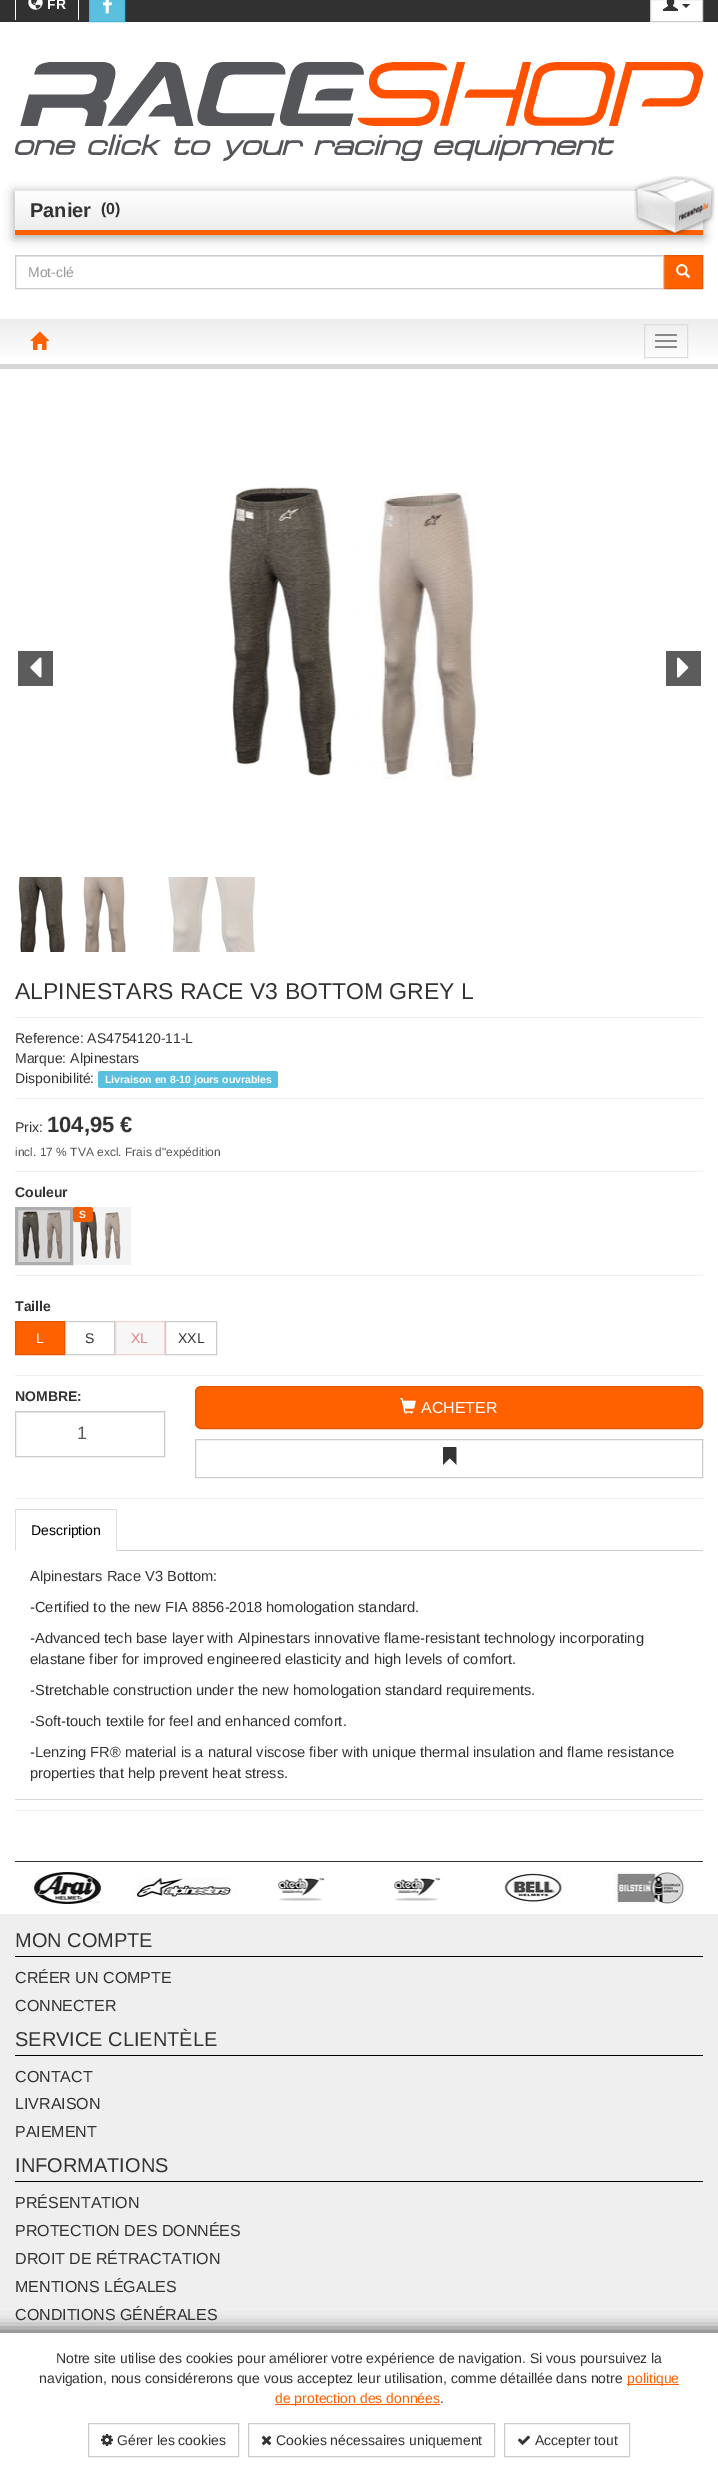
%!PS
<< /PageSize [718 2477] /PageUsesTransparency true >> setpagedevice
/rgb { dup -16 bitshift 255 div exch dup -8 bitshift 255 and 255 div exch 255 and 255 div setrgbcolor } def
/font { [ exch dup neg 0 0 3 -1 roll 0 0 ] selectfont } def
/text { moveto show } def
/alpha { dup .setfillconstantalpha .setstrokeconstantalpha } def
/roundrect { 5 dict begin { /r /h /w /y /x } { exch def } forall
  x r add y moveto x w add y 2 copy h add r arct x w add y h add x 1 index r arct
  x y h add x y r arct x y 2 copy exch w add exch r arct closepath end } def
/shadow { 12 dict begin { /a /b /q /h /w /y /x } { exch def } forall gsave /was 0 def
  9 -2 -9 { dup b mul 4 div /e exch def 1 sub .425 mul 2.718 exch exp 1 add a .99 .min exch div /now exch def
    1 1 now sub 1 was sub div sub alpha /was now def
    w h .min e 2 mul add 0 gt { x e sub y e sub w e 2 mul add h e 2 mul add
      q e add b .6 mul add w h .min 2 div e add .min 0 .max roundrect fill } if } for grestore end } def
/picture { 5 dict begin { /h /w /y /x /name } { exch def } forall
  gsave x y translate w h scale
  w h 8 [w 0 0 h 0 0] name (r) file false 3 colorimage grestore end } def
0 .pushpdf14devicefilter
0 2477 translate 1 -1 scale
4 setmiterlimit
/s1 { /LiberationSans-Bold 14 font 16#FFFFFF rgb } def
/s2 { /LiberationSans-Bold 20 font 16#333333 rgb } def
/s3 { /LiberationSans-Bold 16 font 16#333333 rgb } def
/s4 { /LiberationSans-Regular 14 font 16#999999 rgb } def
/s5 { /LiberationSans-Regular 23 font 16#333333 rgb } def
/s6 { /LiberationSans-Regular 14 font 16#333333 rgb } def
/s7 { /LiberationSans-Bold 10.5 font 16#FFFFFF rgb } def
/s8 { /LiberationSans-Bold 22 font 16#333333 rgb } def
/s9 { /LiberationSans-Regular 12 font 16#555555 rgb } def
/s10 { /LiberationSans-Bold 14 font 16#333333 rgb } def
/s11 { /LiberationSans-Bold 10.5 font 16#F3F3F3 rgb } def
/s12 { /LiberationSans-Regular 14 font 16#FFFFFF rgb } def
/s13 { /LiberationSans-Regular 14 font 16#E08080 rgb } def
/s14 { /LiberationSans-Regular 18 font 16#555555 rgb } def
/s15 { /LiberationSans-Regular 16 font 16#FFFFFF rgb } def
/s16 { /LiberationSans-Regular 14 font 16#000000 rgb } def
/s17 { /LiberationSans-Regular 14.65 font 16#333333 rgb } def
/s18 { /LiberationSans-Regular 20 font 16#333333 rgb } def
/s19 { /LiberationSans-Regular 16 font 16#333333 rgb } def
/s20 { /LiberationSans-Regular 14 font 16#FF6000 rgb } def
16#FFFFFF rgb
0 0 718 2477 rectfill
16#313131 rgb
0 0 718 22 rectfill
16#FFFFFF rgb
78 0 1 20 rectfill
15 0 1 20 rectfill
(pic1.raw) 28 0 15 10 picture
s1
(FR) 47 9 text
16#5BC0DE rgb
89.5 -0.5 moveto 124.5 -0.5 lineto 124.5 21.5 lineto 89.5 21.5 lineto closepath gsave fill grestore
16#46B8DA rgb
stroke
(pic2.raw) 103 0 9 14 picture
16#FFFFFF rgb
650.5 -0.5 moveto 702.5 -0.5 lineto 702.5 21.5 lineto 650.5 21.5 lineto closepath gsave fill grestore
16#CCCCCC rgb
stroke
(pic3.raw) 663 0 15 11 picture
16#333333 rgb
682 4 moveto 690 4 lineto 686 8 lineto closepath fill
(pic4.raw) 15 62 688 99 picture
16#AAAAAA rgb
14 192 690 46 0 5 1 shadow
gsave 15 191 moveto 703 191 lineto 703 230 lineto 15 230 lineto closepath clip newpath
<< /ShadingType 2 /ColorSpace /DeviceRGB /Coords [359 191 359 230] /Extend [true true] /Function << /FunctionType 2 /Domain [0 1] /C0 [1 1 1] /C1 [0.929 0.929 0.929] /N 1 >> >> shfill grestore
16#FF6000 rgb
15 230 688 5 rectfill
s2
(Panier) 30 217 text
s3
(\(0\)) 101 214 text
(pic5.raw) 634 176 81 58 picture
16#ECECEC rgb
16 256 647 1 rectfill
16#FF6000 rgb
663.5 255.5 moveto 702.5 255.5 lineto 702.5 288.5 lineto 663.5 288.5 lineto closepath gsave fill grestore
16#E65600 rgb
stroke
16#CCCCCC rgb
15.5 255.5 648 33 rectstroke
s4
(Mot-clé) 28 277 text
(pic6.raw) 676 264 15 14 picture
gsave 0 319 moveto 718 319 lineto 718 357 lineto 0 357 lineto closepath clip newpath
<< /ShadingType 2 /ColorSpace /DeviceRGB /Coords [359 319 359 364] /Extend [true true] /Function << /FunctionType 3 /Domain [0 1] /Functions [<< /FunctionType 2 /Domain [0 1] /C0 [0.929 0.929 0.929] /C1 [0.965 0.965 0.965] /N 1 >> << /FunctionType 2 /Domain [0 1] /C0 [0.965 0.965 0.965] /C1 [1 1 1] /N 1 >> << /FunctionType 2 /Domain [0 1] /C0 [1 1 1] /C1 [1 1 1] /N 1 >>] /Bounds [0.47 0.99] /Encode [0 1 0 1 0 1] >> >> shfill grestore
16#D6D6D6 rgb
0 364 718 5 rectfill
(pic7.raw) 30 331 20 19 picture
16#DDDDDD rgb
644.5 324.5 43 33 rectstroke
16#888888 rgb
655 334 22 2 1 roundrect fill
655 340 22 2 1 roundrect fill
655 346 22 2 1 roundrect fill
16#F3F3F3 rgb
73 1207 58 58 rectfill
16#5C5C5C rgb
18 651 35 35 rectfill
(pic8.raw) 30 657 12 21 picture
(pic9.raw) 228 487 251 293 picture
666 651 35 35 rectfill
(pic10.raw) 677 657 12 21 picture
(pic11.raw) 18 877 108 75 picture
(pic12.raw) 168 877 89 75 picture
s5
(ALPINESTARS RACE V3 BOTTOM GREY L) 15 999 text
16#EEEEEE rgb
15 1017 688 1 rectfill
s6
(Reference: AS4754120-11-L) 15 1043 text
(Marque: Alpinestars) 15 1063 text
(Disponibilité:) 15 1083 text
16#5BC0DE rgb
98 1071 180 17 2.5 roundrect fill
s7
(Livraison en 8-10 jours ouvrables) 105 1083 text
16#EEEEEE rgb
15 1098 688 1 rectfill
s6
(Prix:) 15 1132 text
s8
(104,95 €) 47 1132 text
s9
(incl. 17 % TVA excl. Frais d"expédition) 15 1156 text
16#EEEEEE rgb
15 1171 688 1 rectfill
s10
(Couleur) 15 1197 text
16#D6D6D6 rgb
16.5 1208.5 moveto 71.5 1208.5 lineto 71.5 1263.5 lineto 16.5 1263.5 lineto closepath gsave fill grestore
16#ADADAD rgb
3 setlinewidth
stroke
(pic13.raw) 22 1211 41 48 picture
(pic14.raw) 80 1211 41 48 picture
16#F35D03 rgb
73 1207 20 15 2.5 roundrect fill
s11
(S) 79 1218 text
16#EEEEEE rgb
15 1275 688 1 rectfill
s10
(Taille) 15 1311 text
16#FF6000 rgb
15.5 1321.5 moveto 64.5 1321.5 lineto 64.5 1354.5 lineto 15.5 1354.5 lineto closepath gsave fill grestore
16#E65600 rgb
1 setlinewidth
stroke
s12
(L) 36 1343 text
16#CCCCCC rgb
65.5 1321.5 49 33 rectstroke
s6
(S) 85 1343 text
16#F7F7F7 rgb
115.5 1321.5 moveto 164.5 1321.5 lineto 164.5 1354.5 lineto 115.5 1354.5 lineto closepath gsave fill grestore
16#F2D0CF rgb
stroke
s13
(XL) 131 1343 text
16#CCCCCC rgb
165.5 1321.5 51 33 rectstroke
s6
(XXL) 178 1343 text
16#EEEEEE rgb
15 1375 688 1 rectfill
s10
(NOMBRE:) 15 1401 text
16#ECECEC rgb
16 1412 148 1 rectfill
16#CCCCCC rgb
15.5 1411.5 149 45 rectstroke
s14
(1) 77 1439 text
16#FF6000 rgb
195.5 1386.5 507 42 5.5 roundrect gsave fill grestore
16#E65600 rgb
stroke
(pic15.raw) 400 1398 16 16 picture
s15
(ACHETER) 421 1413 text
16#CCCCCC rgb
195.5 1439.5 507 38 rectstroke
(pic16.raw) 443 1447 14 18 picture
16#EEEEEE rgb
15 1498 688 1 rectfill
16#CCCCCC rgb
117 1550 586 1 rectfill
16#DDDDDD rgb
15 1509 102 1 rectfill
117 1509 moveto 117 1551 lineto 116 1550 lineto 116 1510 lineto closepath fill
15 1551 moveto 15 1509 lineto 16 1510 lineto 16 1550 lineto closepath fill
s16
(Description) 31 1535 text
16#D9D9D9 rgb
15 1799 688 1 rectfill
s17
(Alpinestars Race V3 Bottom:) 30 1581 text
(-Certified to the new FIA 8856-2018 homologation standard.) 30 1612 text
(-Advanced tech base layer with Alpinestars innovative flame-resistant technology incorporating) 30 1643 text
(elastane fiber for improved engineered elasticity and high levels of comfort.) 30 1664 text
(-Stretchable construction under the new homologation standard requirements.) 30 1695 text
(-Soft-touch textile for feel and enhanced comfort.) 30 1726 text
(-Lenzing FR® material is a natural viscose fiber with unique thermal insulation and flame resistance) 30 1757 text
(properties that help prevent heat stress.) 30 1778 text
16#EEEEEE rgb
15 1810 688 1 rectfill
16#333333 rgb
15 1861 688 1 rectfill
(pic17.raw) 31 1872 73 32 picture
(pic18.raw) 132 1872 105 31 picture
(pic19.raw) 278 1878 47 23 picture
(pic19.raw) 394 1878 47 23 picture
(pic20.raw) 504 1872 58 32 picture
(pic21.raw) 613 1872 73 32 picture
16#EFEFEF rgb
0 1914 718 419 rectfill
16#000000 rgb
15 1956 688 1 rectfill
s18
(MON COMPTE) 15 1947 text
s19
(CRÉER UN COMPTE) 15 1983 text
(CONNECTER) 15 2011 text
16#000000 rgb
15 2055 688 1 rectfill
s18
(SERVICE CLIENTÈLE) 15 2046 text
s19
(CONTACT) 15 2082 text
(LIVRAISON) 15 2109 text
(PAIEMENT) 15 2137 text
16#000000 rgb
15 2181 688 1 rectfill
s18
(INFORMATIONS) 15 2172 text
s19
(PRÉSENTATION) 15 2208 text
(PROTECTION DES DONNÉES) 15 2236 text
(DROIT DE RÉTRACTATION) 15 2264 text
(MENTIONS LÉGALES) 15 2292 text
(CONDITIONS GÉNÉRALES) 15 2320 text
16#000000 rgb
-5 2328 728 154 0 7.5 0.5 shadow
16#FFFFFF rgb
0 2333 718 144 rectfill
s6
(Notre site utilise des cookies pour améliorer votre expérience de navigation. Si vous poursuivez la) 56 2363 text
(navigation, nous considérerons que vous acceptez leur utilisation, comme détaillée dans notre) 39 2383 text
16#FF6000 rgb
627 2384 52 1 rectfill
(politique) 627 2383 text
275 2404 165 1 rectfill
(de protection des données) 275 2403 text
s6
(.) 440 2403 text
16#CCCCCC rgb
88.5 2423.5 150 33 rectstroke
(pic22.raw) 101 2434 12 12 picture
s6
(Gérer les cookies) 117 2445 text
16#CCCCCC rgb
248.5 2423.5 246 33 rectstroke
(pic23.raw) 261 2435 11 11 picture
s6
(Cookies nécessaires uniquement) 276 2445 text
16#CCCCCC rgb
504.5 2423.5 125 33 rectstroke
(pic24.raw) 518 2435 12 10 picture
s6
(Accepter tout) 535 2445 text
.poppdf14devicefilter showpage
